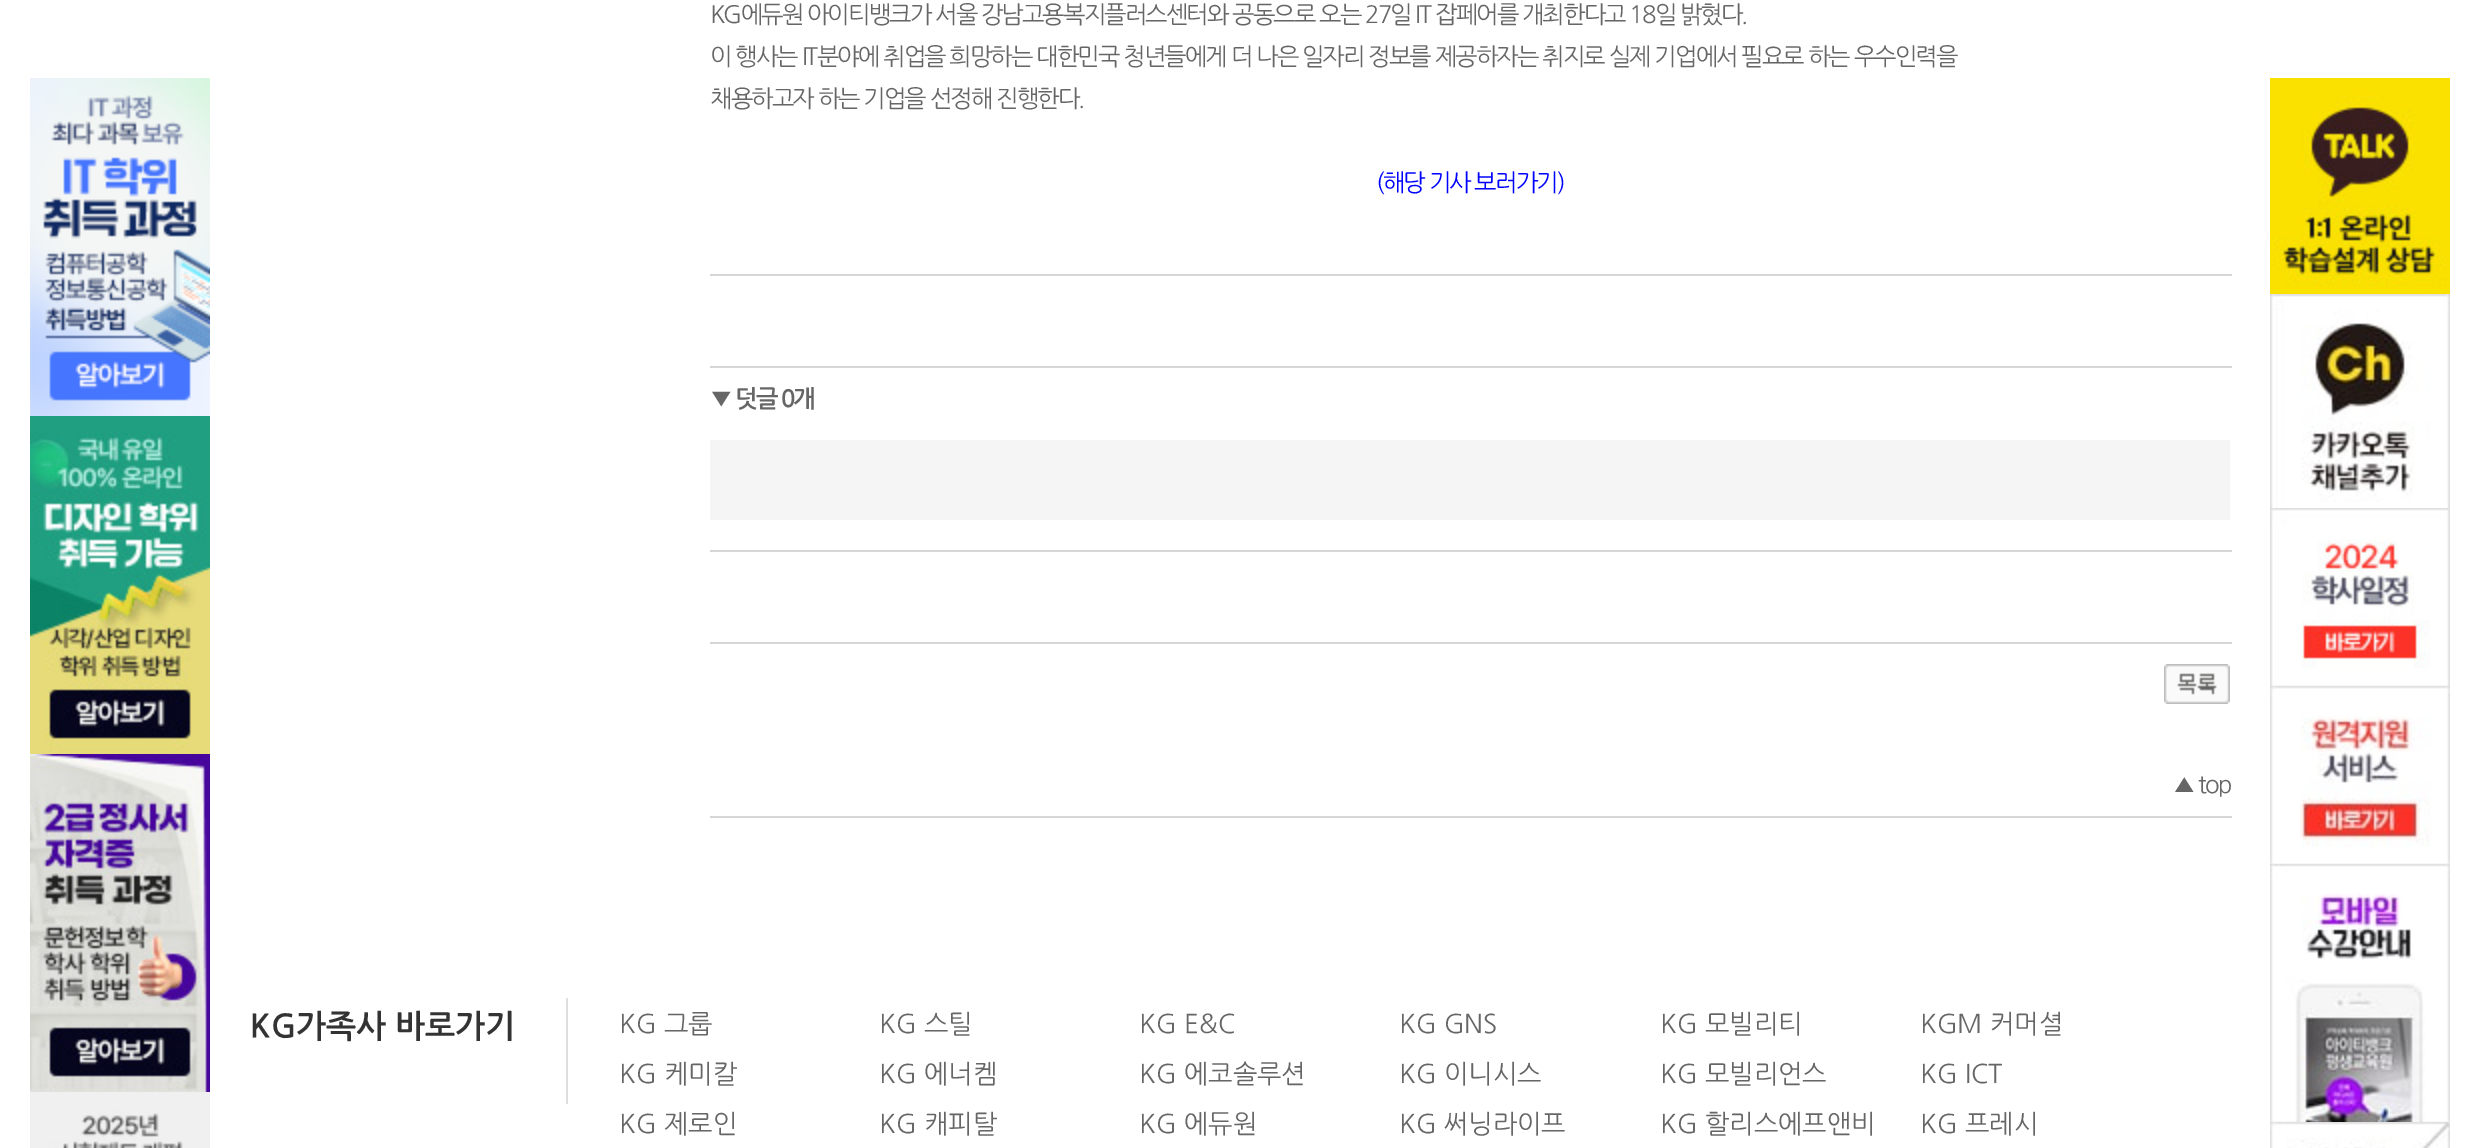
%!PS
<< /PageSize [2480 1148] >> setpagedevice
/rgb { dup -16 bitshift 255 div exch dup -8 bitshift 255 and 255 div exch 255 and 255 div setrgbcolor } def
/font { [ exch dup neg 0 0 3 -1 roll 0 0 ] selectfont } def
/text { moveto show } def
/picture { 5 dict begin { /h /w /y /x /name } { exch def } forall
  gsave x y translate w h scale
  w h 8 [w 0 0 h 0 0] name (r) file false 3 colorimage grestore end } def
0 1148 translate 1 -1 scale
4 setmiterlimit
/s1 { /NanumGothic-Bold 32 font 16#333333 rgb } def
/s2 { /NanumGothic-Regular 26 font 16#666666 rgb } def
16#FFFFFF rgb
0 0 2480 1148 rectfill
(pic1.raw) 30 78 180 338 picture
(pic2.raw) 30 416 180 338 picture
(pic3.raw) 30 754 180 338 picture
(pic4.raw) 30 1092 180 56 picture
16#D6D6D6 rgb
710 274 1522 2 rectfill
/NanumGothic-Regular 24 font
16#666666 rgb
710 22 moveto -2 0 (KG에듀원 아이티뱅크가 서울 강남고용복지플러스센터와 공동으로 오는 27일 IT 잡페어를 개최한다고 18일 밝혔다.) ashow
710 64 moveto -2 0 (이 행사는 IT분야에 취업을 희망하는 대한민국 청년들에게 더 나은 일자리 정보를 제공하자는 취지로 실제 기업에서 필요로 하는 우수인력을) ashow
710 106 moveto -2 0 (채용하고자 하는 기업을 선정해 진행한다.) ashow
16#0000FF rgb
1376 190 moveto -2 0 (\(해당 기사 보러가기\)) ashow
16#D6D6D6 rgb
710 366 1522 2 rectfill
710 550 1522 2 rectfill
16#666666 rgb
710 406 moveto -2 0 (▼) ashow
/NanumGothic-Bold 24 font
735 406 moveto -2 0 (덧글 0개) ashow
16#F5F5F5 rgb
710 440 1520 80 rectfill
16#D6D6D6 rgb
710 642 1522 2 rectfill
710 816 1522 2 rectfill
(pic5.raw) 2164 664 66 40 picture
/NanumGothic-Regular 24 font
16#666666 rgb
2173 792 moveto -2 0 (▲ top) ashow
(pic6.raw) 2270 78 180 216 picture
(pic7.raw) 2270 294 180 214 picture
(pic8.raw) 2270 508 180 178 picture
(pic9.raw) 2270 686 180 178 picture
(pic10.raw) 2270 864 180 258 picture
(pic11.raw) 2270 1122 180 26 picture
16#DEDEDE rgb
566 998 2 106 rectfill
s1
(KG가족사 바로가기) 250 1036 text
s2
(KG 그룹) 619 1032 text
(KG 스틸) 879 1032 text
(KG E&C) 1139 1032 text
(KG GNS) 1399 1032 text
(KG 모빌리티) 1660 1032 text
(KGM 커머셜) 1920 1032 text
(KG 케미칼) 619 1082 text
(KG 에너켐) 879 1082 text
(KG 에코솔루션) 1139 1082 text
(KG 이니시스) 1399 1082 text
(KG 모빌리언스) 1660 1082 text
(KG ICT) 1920 1082 text
(KG 제로인) 619 1132 text
(KG 캐피탈) 879 1132 text
(KG 에듀원) 1139 1132 text
(KG 써닝라이프) 1399 1132 text
(KG 할리스에프앤비) 1660 1132 text
(KG 프레시) 1920 1132 text
showpage
